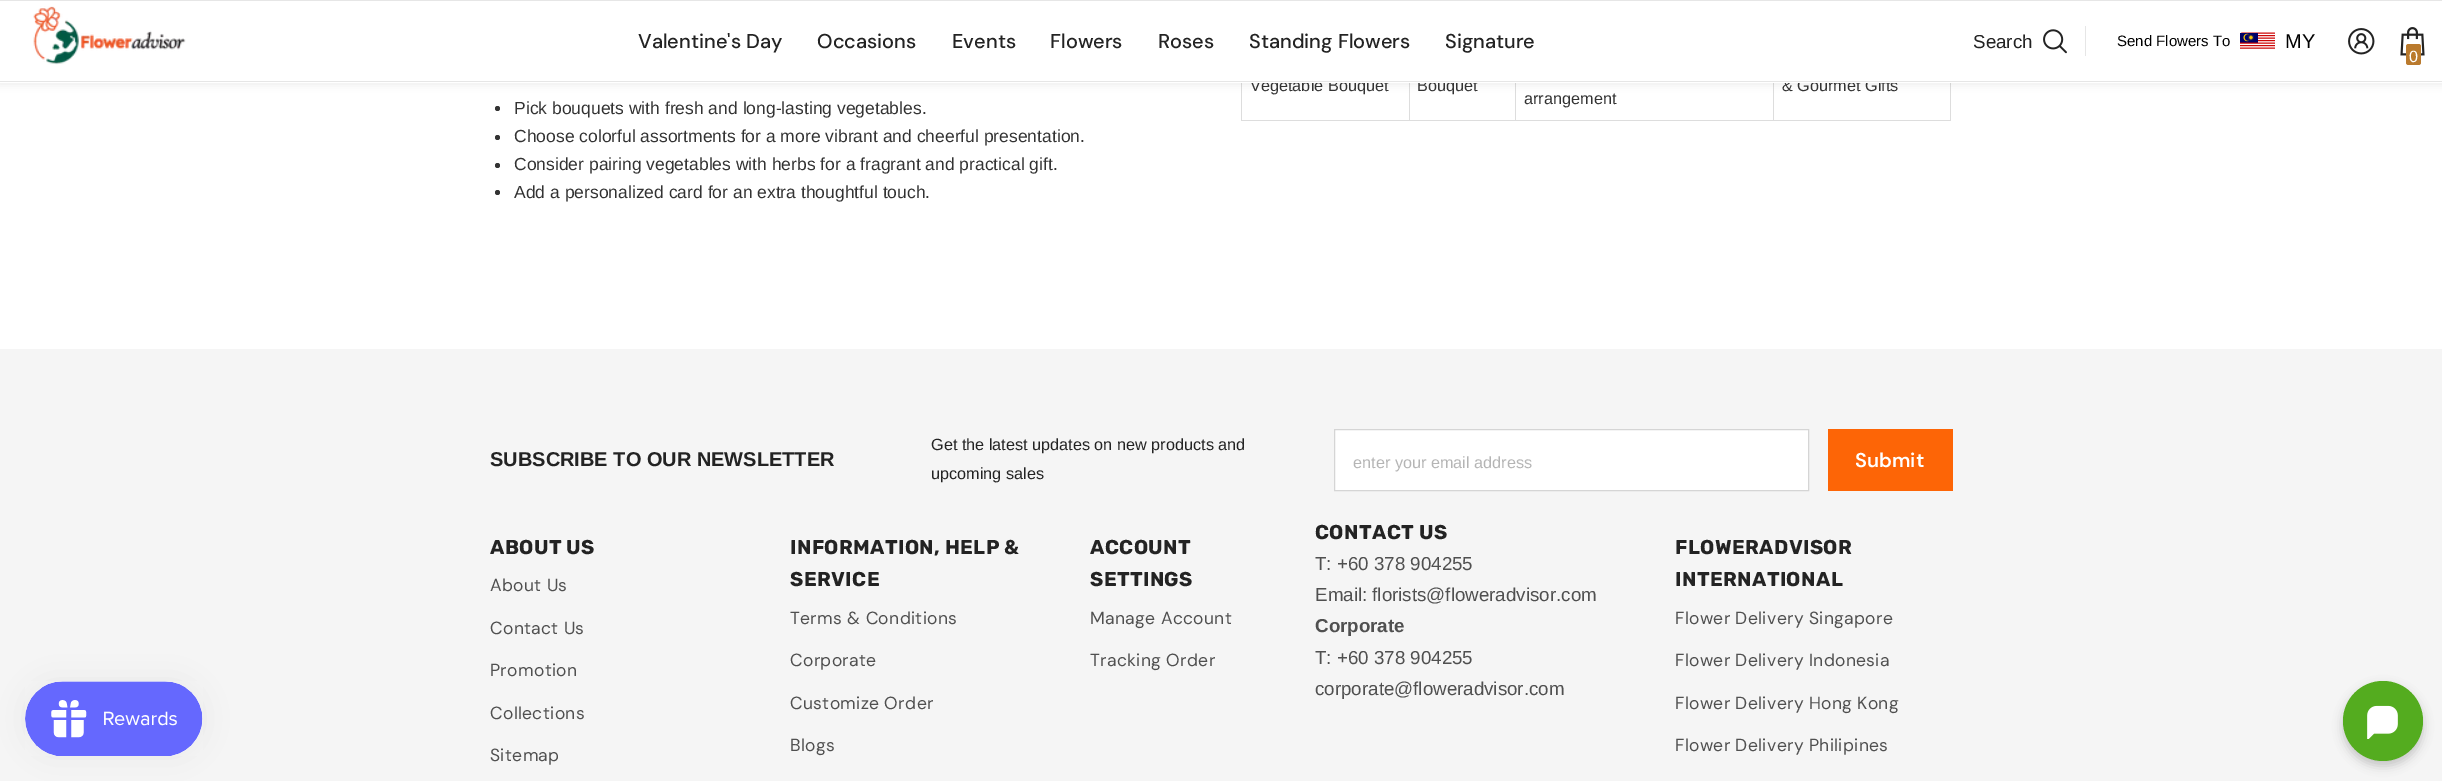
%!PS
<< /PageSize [2442 781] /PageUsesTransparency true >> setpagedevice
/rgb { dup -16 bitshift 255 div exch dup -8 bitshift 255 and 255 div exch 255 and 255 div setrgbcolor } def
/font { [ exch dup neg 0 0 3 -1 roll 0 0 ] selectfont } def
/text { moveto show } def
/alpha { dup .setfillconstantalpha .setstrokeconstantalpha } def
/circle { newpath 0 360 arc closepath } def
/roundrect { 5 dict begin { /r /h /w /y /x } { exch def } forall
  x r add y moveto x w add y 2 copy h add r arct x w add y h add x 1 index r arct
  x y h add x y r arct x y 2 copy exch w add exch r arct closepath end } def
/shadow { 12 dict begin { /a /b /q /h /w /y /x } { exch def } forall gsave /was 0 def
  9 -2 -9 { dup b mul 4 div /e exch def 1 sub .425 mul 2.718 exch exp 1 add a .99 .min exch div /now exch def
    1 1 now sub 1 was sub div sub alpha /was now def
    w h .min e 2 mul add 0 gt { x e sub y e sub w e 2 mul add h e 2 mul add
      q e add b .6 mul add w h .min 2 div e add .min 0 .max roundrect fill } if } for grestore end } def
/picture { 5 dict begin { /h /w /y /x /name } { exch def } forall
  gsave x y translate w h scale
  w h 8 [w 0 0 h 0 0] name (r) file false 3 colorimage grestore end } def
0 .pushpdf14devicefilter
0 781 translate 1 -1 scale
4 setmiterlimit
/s1 { /LiberationSans-Regular 16.25 font 16#333333 rgb } def
/s2 { /DMSans-Medium 20 font 16#232323 rgb } def
/s3 { /LiberationSans-Regular 18.75 font 16#232323 rgb } def
/s4 { /LiberationSans-Regular 15 font 16#000000 rgb } def
/s5 { /LiberationSans-Regular 20 font 16#000000 rgb } def
/s6 { /LiberationSans-Regular 16.25 font 16#FFFFFF rgb } def
/s7 { /LiberationSans-Regular 17.5 font 16#333333 rgb } def
/s8 { /LiberationSans-Bold 20 font 16#232323 rgb } def
/s9 { /LiberationSans-Regular 16.25 font 16#232323 rgb } def
/s10 { /LiberationSans-Regular 16.25 font 16#B5B5B5 rgb } def
/s11 { /DMSans-SemiBold 20 font 16#FFFFFF rgb } def
/s12 { /LiberationSans-Regular 18.75 font 16#505050 rgb } def
/s13 { /LiberationSans-Bold 18.75 font 16#505050 rgb } def
16#FFFFFF rgb
0 0 2442 781 rectfill
16#F5F5F5 rgb
0 349 2442 432 rectfill
16#000000 rgb
25 681 178 75 37.5 15.5 0.05 shadow
(pic1.raw) 25 681 178 75 picture
16#DDDDDD rgb
1950 83 1 38 rectfill
1773 120 178 1 rectfill
1773 83 1 38 rectfill
1515 120 259 1 rectfill
1515 83 1 38 rectfill
1409 120 107 1 rectfill
1409 83 1 38 rectfill
1241 120 169 1 rectfill
1241 83 1 38 rectfill
16#1E1E1E rgb
0 1 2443 83 0 4 0.1 shadow
s1
(Vegetable Bouquet) 1250 91 text
(Bouquet) 1417 91 text
(& Gourmet Gifts) 1782 91 text
16#FFFFFF rgb
0 1 2442 82 rectfill
16#E6E6E6 rgb
0 0 2442 1 rectfill
0 81 2442 1 rectfill
(pic2.raw) 33 6 153 59 picture
s2
(Valentine's Day) 638 48 text
(Occasions) 817 48 text
(Events) 952 48 text
(Flowers) 1050 48 text
(Roses) 1158 48 text
(Standing Flowers) 1249 48 text
(Signature) 1445 48 text
s3
(Search) 1973 48 text
(pic3.raw) 2043 29 24 25 picture
16#E6E6E6 rgb
2085 26 1 30 rectfill
s4
(Send Flowers To) 2117 46 text
(pic4.raw) 2240 32 35 17 picture
s5
(MY) 2285 48 text
(pic5.raw) 2348 28 27 27 picture
(pic6.raw) 2400 27 25 29 picture
16#BA7A2D rgb
2406 44 15 21 2.5 roundrect fill
s6
(0) 2409 62 text
s1
(arrangement) 1524 104 text
497.5 108.5 2.5 circle fill
s7
(Pick bouquets with fresh and long-lasting vegetables.) 514 114 text
497.5 137.5 2.5 circle fill
(Choose colorful assortments for a more vibrant and cheerful presentation.) 514 142 text
497.5 165.5 2.5 circle fill
(Consider pairing vegetables with herbs for a fragrant and practical gift.) 514 170 text
497.5 192.5 2.5 circle fill
(Add a personalized card for an extra thoughtful touch.) 514 198 text
s8
(SUBSCRIBE TO OUR NEWSLETTER) 490 466 text
s9
(Get the latest updates on new products and) 931 450 text
(upcoming sales) 931 479 text
16#FFFFFF rgb
1334.5 429.5 moveto 1808.5 429.5 lineto 1808.5 490.5 lineto 1334.5 490.5 lineto closepath gsave fill grestore
16#D5D5D5 rgb
stroke
s10
(enter your email address) 1353 468 text
16#FD6506 rgb
1828 429 125 62 rectfill
s11
(Submit) 1855 467 text
/Rubik-Light 20 font
16#232323 rgb
490 554 moveto 0.4 0 (ABOUT US) ashow
/DMSans-Regular 17.5 font
16#505050 rgb
490 591 moveto 0.35 0 (About Us) ashow
490 634 moveto 0.35 0 (Contact Us) ashow
490 676 moveto 0.35 0 (Promotion) ashow
490 719 moveto 0.35 0 (Collections) ashow
490 761 moveto 0.35 0 (Sitemap) ashow
/Rubik-Light 20 font
16#232323 rgb
790 554 moveto 0.4 0 (INFORMATION, HELP &) ashow
790 586 moveto 0.4 0 (SERVICE) ashow
/DMSans-Regular 17.5 font
16#505050 rgb
790 624 moveto 0.35 0 (Terms & Conditions) ashow
790 666 moveto 0.35 0 (Corporate) ashow
790 709 moveto 0.35 0 (Customize Order) ashow
790 751 moveto 0.35 0 (Blogs) ashow
/Rubik-Light 20 font
16#232323 rgb
1090 554 moveto 0.4 0 (ACCOUNT) ashow
1090 586 moveto 0.4 0 (SETTINGS) ashow
/DMSans-Regular 17.5 font
16#505050 rgb
1090 624 moveto 0.35 0 (Manage Account) ashow
1090 666 moveto 0.35 0 (Tracking Order) ashow
/Rubik-Light 20 font
16#232323 rgb
1315 539 moveto 0.4 0 (CONTACT US) ashow
s12
(T: +60 378 904255) 1315 570 text
(Email: florists@floweradvisor.com) 1315 601 text
s13
(Corporate) 1315 632 text
s12
(T: +60 378 904255) 1315 664 text
(corporate@floweradvisor.com) 1315 695 text
/Rubik-Light 20 font
16#232323 rgb
1675 554 moveto 0.4 0 (FLOWERADVISOR) ashow
1675 586 moveto 0.4 0 (INTERNATIONAL) ashow
/DMSans-Regular 17.5 font
16#505050 rgb
1675 624 moveto 0.35 0 (Flower Delivery Singapore) ashow
1675 666 moveto 0.35 0 (Flower Delivery Indonesia) ashow
1675 709 moveto 0.35 0 (Flower Delivery Hong Kong) ashow
1675 751 moveto 0.35 0 (Flower Delivery Philipines) ashow
16#000000 rgb
2343 686 80 80 40 5 0.2 shadow
16#54AC1F rgb
2383 721 40 circle fill
(pic7.raw) 2367 705 31 34 picture
.poppdf14devicefilter showpage
